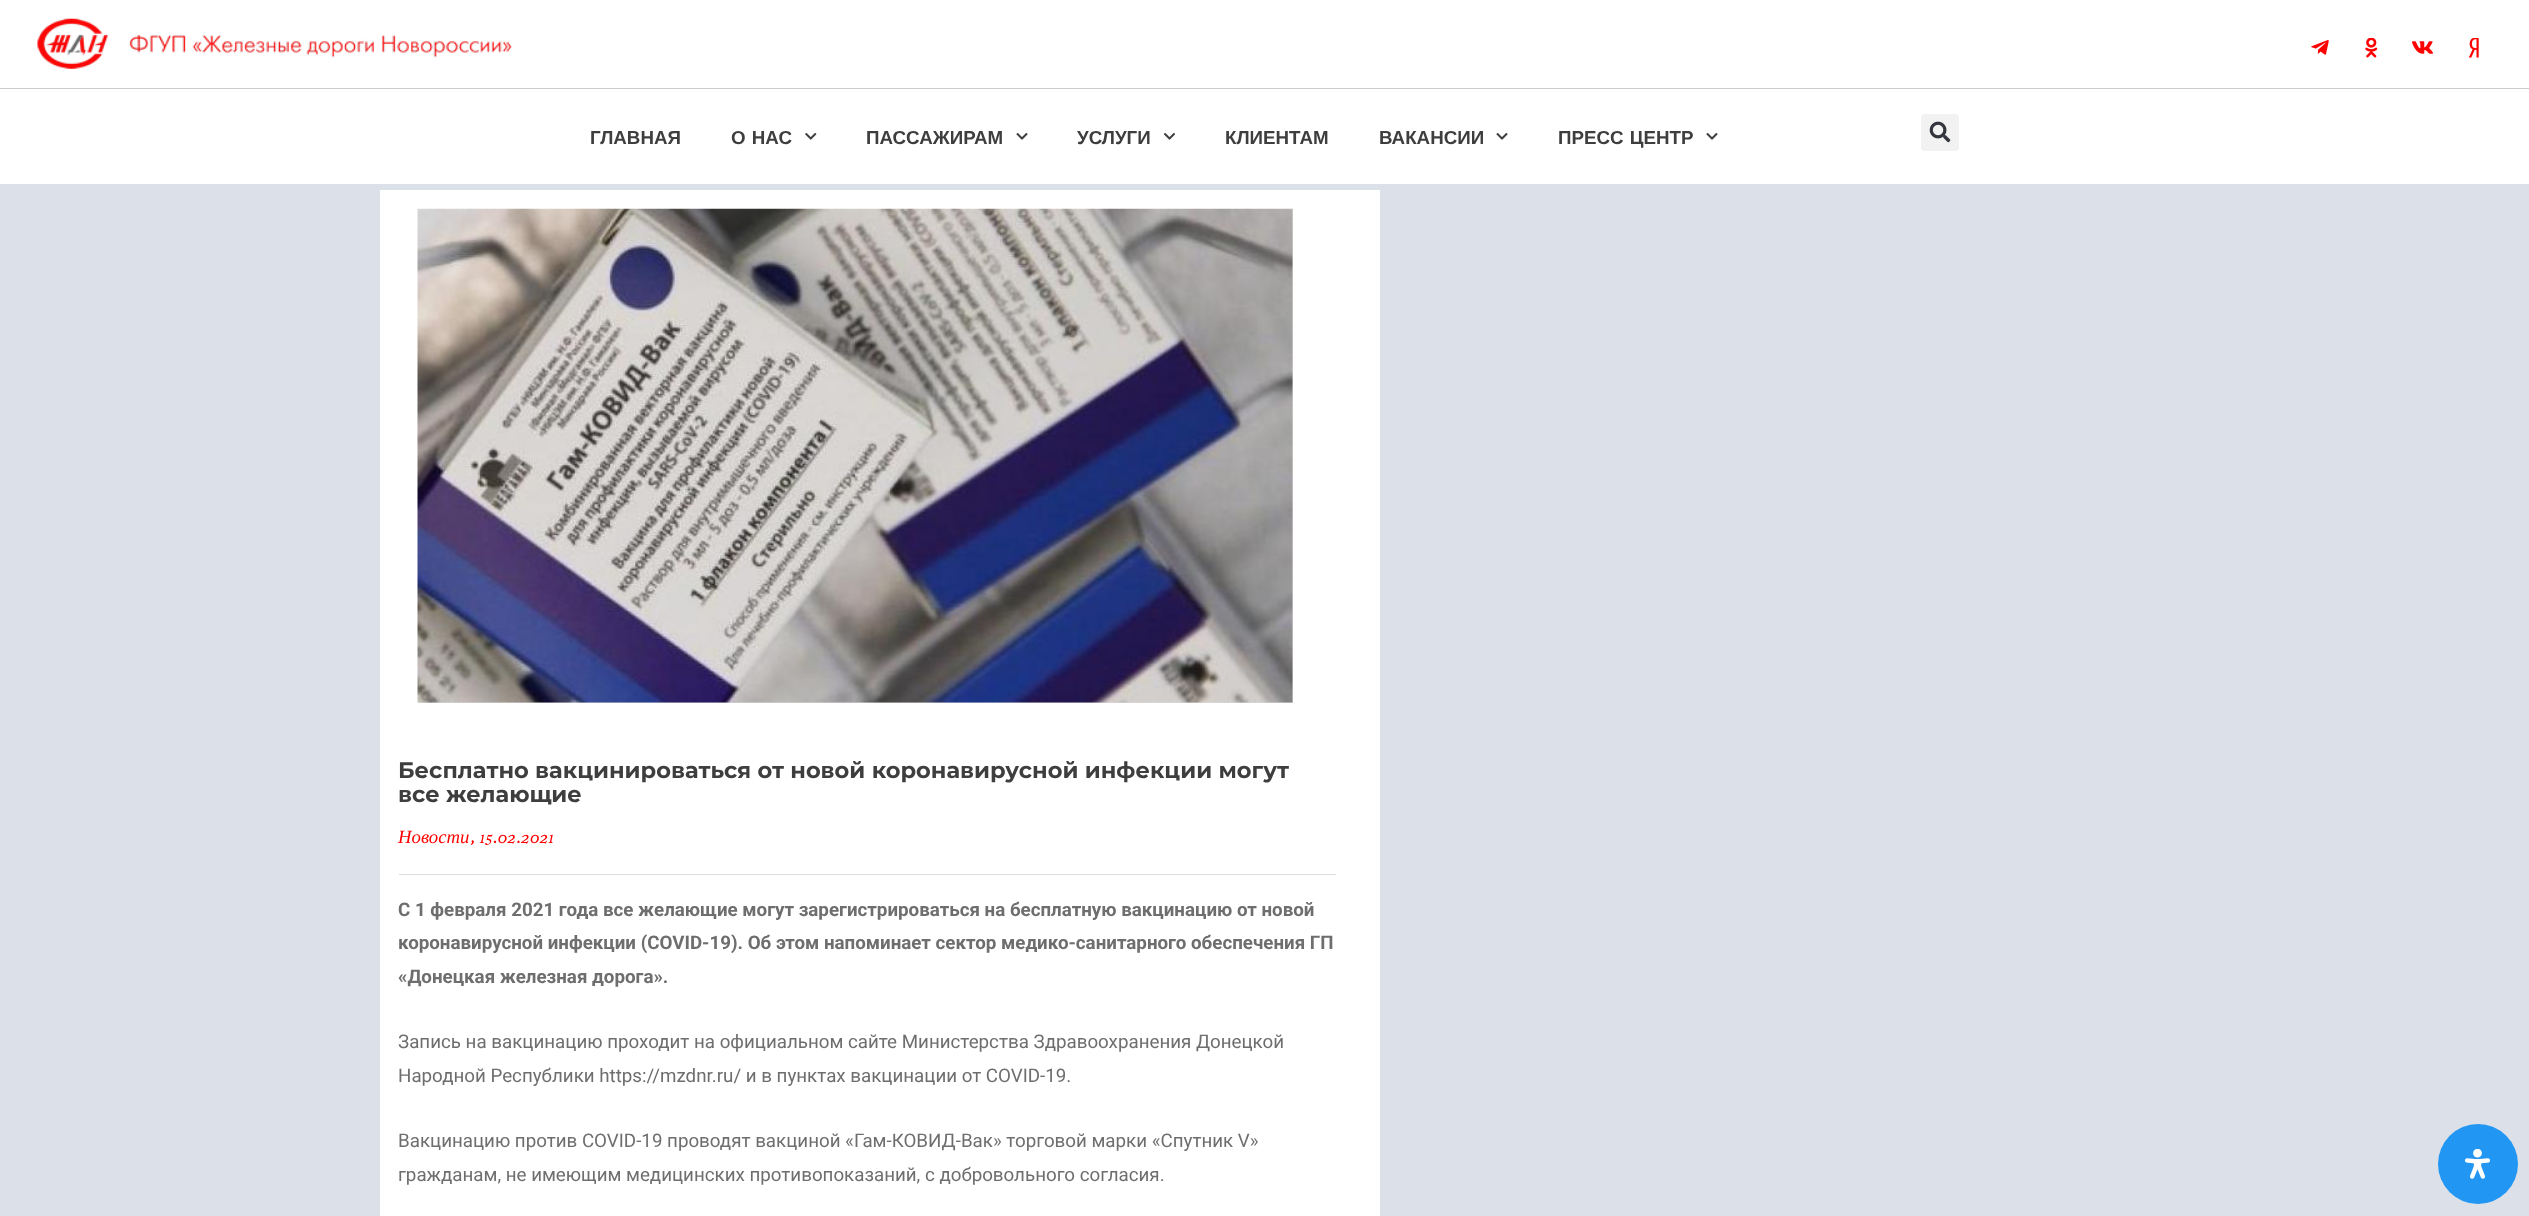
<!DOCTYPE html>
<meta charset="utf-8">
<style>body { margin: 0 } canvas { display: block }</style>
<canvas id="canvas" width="2529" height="1216"></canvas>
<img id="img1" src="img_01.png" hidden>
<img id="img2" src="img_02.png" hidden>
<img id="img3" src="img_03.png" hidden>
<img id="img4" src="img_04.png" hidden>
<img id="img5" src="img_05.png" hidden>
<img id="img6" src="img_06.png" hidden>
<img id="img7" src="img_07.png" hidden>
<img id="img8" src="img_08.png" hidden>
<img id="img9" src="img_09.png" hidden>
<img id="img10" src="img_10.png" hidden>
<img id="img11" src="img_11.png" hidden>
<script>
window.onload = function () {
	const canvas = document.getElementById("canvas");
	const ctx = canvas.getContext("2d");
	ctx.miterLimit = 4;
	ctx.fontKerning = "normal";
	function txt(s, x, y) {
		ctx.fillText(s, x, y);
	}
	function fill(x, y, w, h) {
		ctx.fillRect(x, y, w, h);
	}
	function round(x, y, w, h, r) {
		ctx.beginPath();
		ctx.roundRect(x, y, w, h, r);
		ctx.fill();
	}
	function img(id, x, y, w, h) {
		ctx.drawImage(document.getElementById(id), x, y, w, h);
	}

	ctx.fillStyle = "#DCE0E8";
	fill(0, 0, 2529, 1216);
	ctx.fillStyle = "#FFFFFF";
	fill(0, 0, 2529, 88);
	img("img1", 37, 18, 475, 51);
	img("img2", 2311, 40, 18, 15);
	img("img3", 2365, 38, 13, 20);
	img("img4", 2412, 41, 21, 13);
	img("img5", 2468, 38, 11, 20);
	fill(0, 89, 2529, 95);
	ctx.fillStyle = "#CBCBCB";
	fill(0, 88, 2529, 1);
	img("img6", 805, 133, 12, 7);
	img("img7", 1016, 133, 12, 7);
	img("img8", 1164, 133, 11, 7);
	img("img7", 1496, 133, 12, 7);
	img("img7", 1706, 133, 12, 7);
	ctx.fillStyle = "#F2F2F2";
	round(1921, 114, 38, 37, 4);
	img("img9", 1929, 121, 22, 22);
	ctx.fillStyle = "#FFFFFF";
	fill(380, 190, 1000, 1026);
	ctx.fillStyle = "#DDDDDD";
	fill(418, 209, 875, 494);
	img("img10", 417, 208, 876, 495);
	fill(399, 874, 937, 1);
	ctx.fillStyle = "#2196F3";
	ctx.beginPath();
	ctx.arc(2478, 1164, 40, 0, Math.PI * 2);
	ctx.fill();
	img("img11", 2464, 1149, 27, 30);
	ctx.font = "bold 18.75px Liberation Sans";
	ctx.fillStyle = "#3E3E3E";
	txt("ГЛАВНАЯ", 590, 144);
	ctx.wordSpacing = "1px";
	txt("О НАС", 731, 144);
	ctx.wordSpacing = "0px";
	txt("ПАССАЖИРАМ", 866, 144);
	txt("УСЛУГИ", 1077, 144);
	txt("КЛИЕНТАМ", 1225, 144);
	txt("ВАКАНСИИ", 1379, 144);
	ctx.wordSpacing = "1px";
	txt("ПРЕСС ЦЕНТР", 1558, 144);
	ctx.wordSpacing = "0px";
	ctx.font = "100 22.5px Montserrat";
	txt("Бесплатно вакцинироваться от новой коронавирусной инфекции могут", 398, 778);
	txt("все желающие", 398, 802);
	ctx.font = "italic 18.75px Liberation Serif";
	ctx.fillStyle = "#FF0000";
	txt("Новости", 398, 843);
	ctx.font = "italic 18.75px Radley";
	txt(", 15.02.2021", 470, 843);
	ctx.font = "bold 18.75px Roboto";
	ctx.fillStyle = "#6E6E6E";
	txt("С 1 февраля 2021 года все желающие могут зарегистрироваться на бесплатную вакцинацию от новой", 398, 916);
	txt("коронавирусной инфекции (COVID-19). Об этом напоминает сектор медико-санитарного обеспечения ГП", 398, 949);
	txt("«Донецкая железная дорога».", 398, 983);
	ctx.font = "18.75px Roboto";
	txt("Запись на вакцинацию проходит на официальном сайте Министерства Здравоохранения Донецкой", 398, 1048);
	txt("Народной Республики https://mzdnr.ru/ и в пунктах вакцинации от СOVID-19.", 398, 1082);
	txt("Вакцинацию против COVID-19 проводят вакциной «Гам-КОВИД-Вак» торговой марки «Спутник V»", 398, 1147);
	txt("гражданам, не имеющим медицинских противопоказаний, с добровольного согласия.", 398, 1181);
};
</script>
